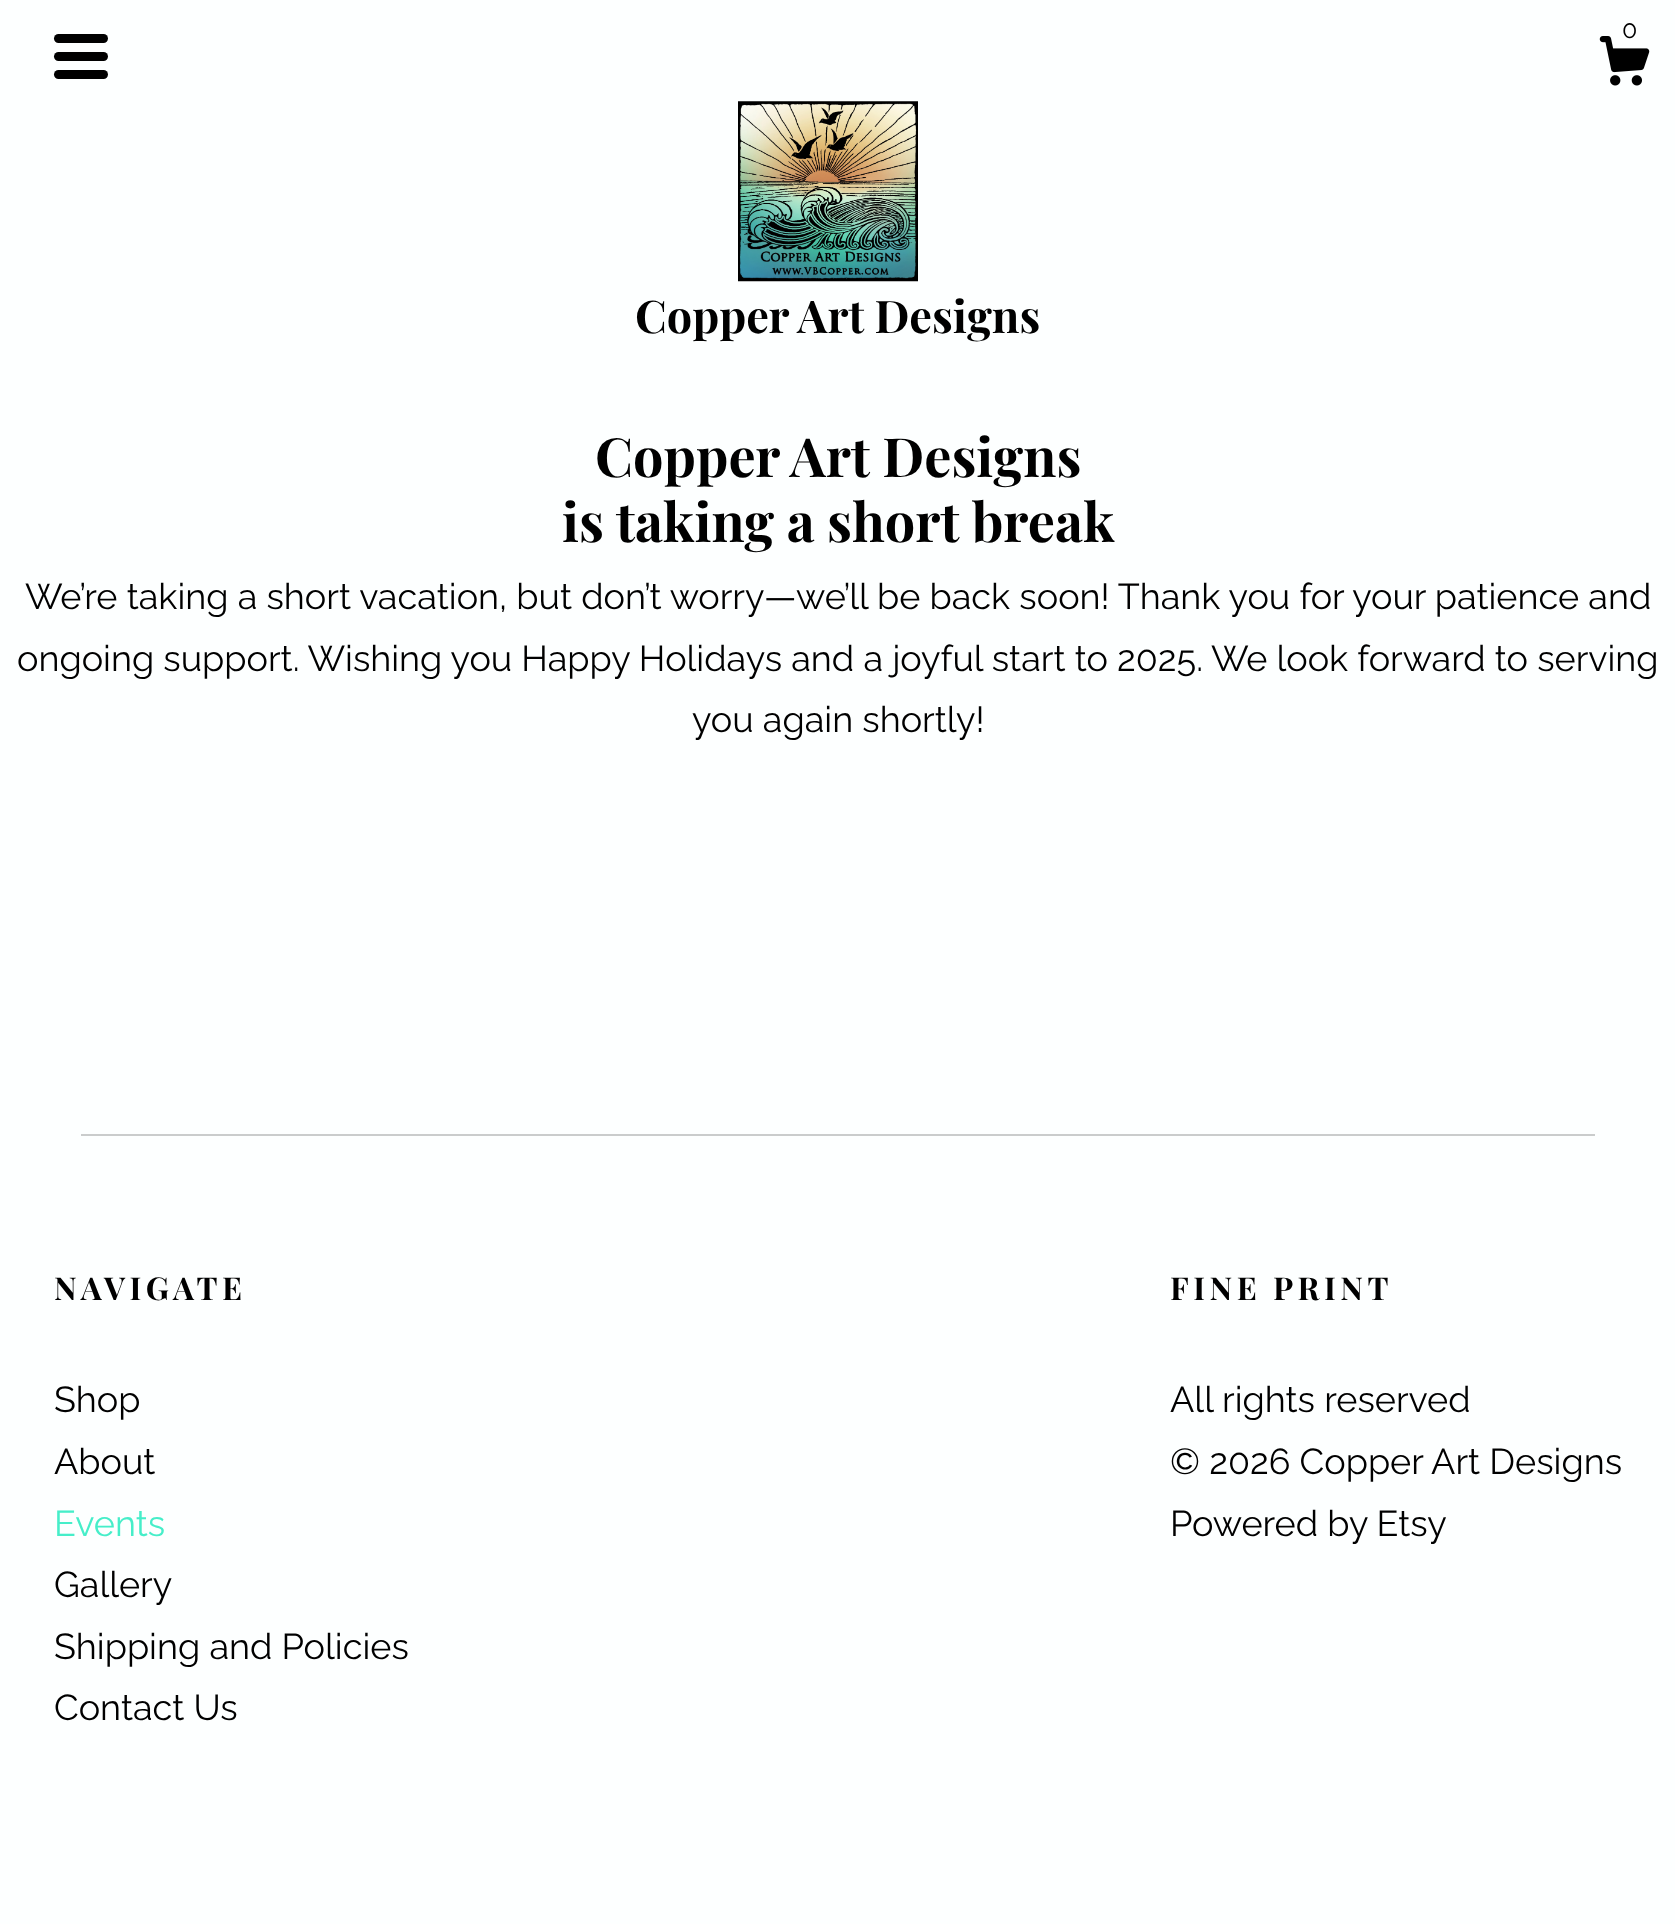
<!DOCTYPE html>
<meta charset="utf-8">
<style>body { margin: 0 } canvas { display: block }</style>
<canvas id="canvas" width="1675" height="1924"></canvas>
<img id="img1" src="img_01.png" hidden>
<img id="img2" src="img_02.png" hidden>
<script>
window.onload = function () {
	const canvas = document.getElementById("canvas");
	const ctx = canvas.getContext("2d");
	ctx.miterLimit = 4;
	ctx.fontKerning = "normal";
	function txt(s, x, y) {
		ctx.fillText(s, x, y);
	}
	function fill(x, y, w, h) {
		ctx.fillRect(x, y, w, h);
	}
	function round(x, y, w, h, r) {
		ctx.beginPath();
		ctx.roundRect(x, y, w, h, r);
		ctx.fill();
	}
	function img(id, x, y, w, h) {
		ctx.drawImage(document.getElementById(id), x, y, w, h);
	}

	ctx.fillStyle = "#FDFFFF";
	fill(0, 0, 1675, 1924);
	img("img1", 1599, 36, 51, 50);
	ctx.fillStyle = "#000000";
	round(54, 34, 54, 9, 4.5);
	round(54, 52, 54, 9, 4.5);
	round(54, 70, 54, 9, 4.5);
	img("img2", 738, 101, 180, 181);
	ctx.fillStyle = "#CACCCC";
	fill(81, 1134, 1514, 2);
	ctx.font = "25px Raleway";
	ctx.fillStyle = "#000000";
	txt("0", 1622, 38);
	ctx.font = "bold 45px Playfair Display";
	txt("Copper Art Designs", 635, 333);
	ctx.font = "bold 54px Playfair Display";
	txt("Copper Art Designs", 595, 477);
	txt("is taking a short break", 562, 542);
	ctx.font = "36px Raleway";
	txt("We’re taking a short vacation, but don’t worry—we’ll be back soon! Thank you for your patience and", 25, 609);
	txt("ongoing support. Wishing you Happy Holidays and a joyful start to 2025. We look forward to serving", 17, 671);
	txt("you again shortly!", 692, 732);
	ctx.letterSpacing = "4.5px";
	ctx.font = "bold 31.5px Playfair Display";
	txt("NAVIGATE", 54, 1300);
	ctx.letterSpacing = "0px";
	ctx.font = "36px Raleway";
	txt("Shop", 54, 1412);
	txt("About", 54, 1474);
	ctx.fillStyle = "#46EEC9";
	txt("Events", 54, 1536);
	ctx.fillStyle = "#000000";
	txt("Gallery", 54, 1597);
	txt("Shipping and Policies", 54, 1659);
	txt("Contact Us", 54, 1720);
	ctx.letterSpacing = "4.5px";
	ctx.font = "bold 31.5px Playfair Display";
	txt("FINE PRINT", 1170, 1300);
	ctx.letterSpacing = "0px";
	ctx.font = "36px Raleway";
	txt("All rights reserved", 1170, 1412);
	txt("© 2026 Copper Art Designs", 1170, 1474);
	txt("Powered by Etsy", 1170, 1536);
};
</script>
